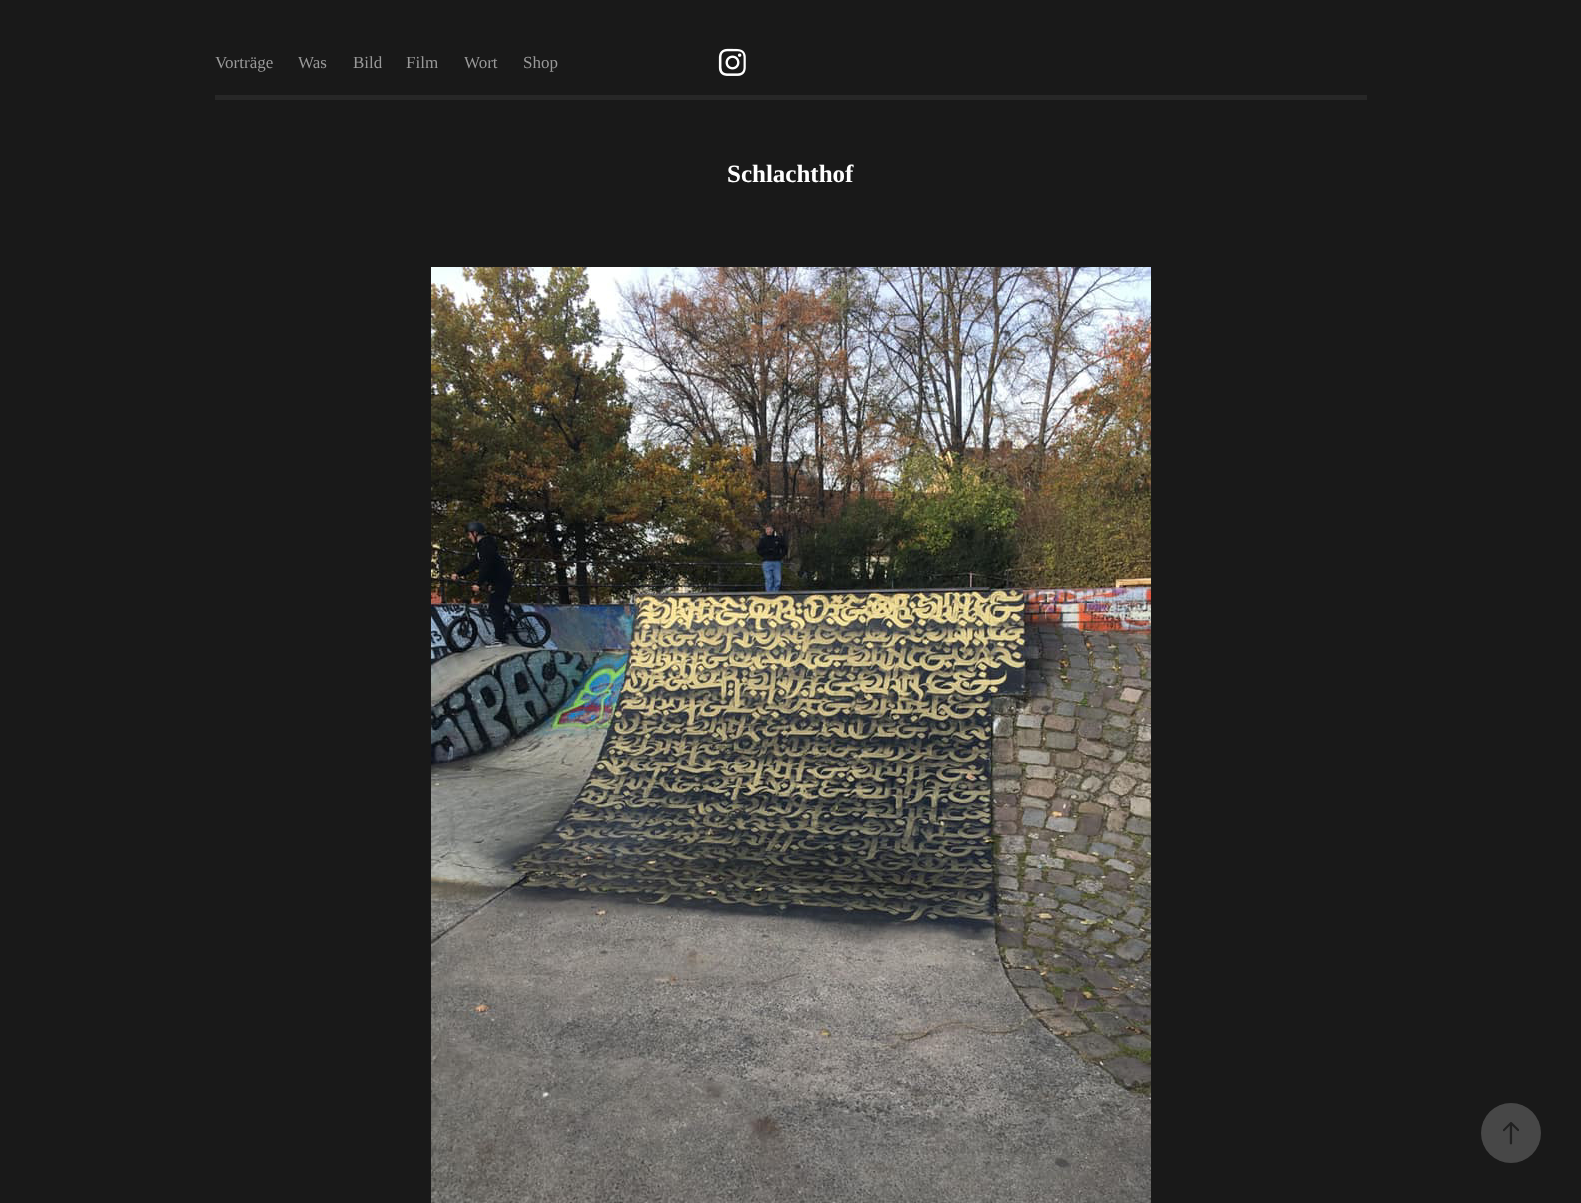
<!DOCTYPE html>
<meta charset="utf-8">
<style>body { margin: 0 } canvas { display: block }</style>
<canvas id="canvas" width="1581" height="1203"></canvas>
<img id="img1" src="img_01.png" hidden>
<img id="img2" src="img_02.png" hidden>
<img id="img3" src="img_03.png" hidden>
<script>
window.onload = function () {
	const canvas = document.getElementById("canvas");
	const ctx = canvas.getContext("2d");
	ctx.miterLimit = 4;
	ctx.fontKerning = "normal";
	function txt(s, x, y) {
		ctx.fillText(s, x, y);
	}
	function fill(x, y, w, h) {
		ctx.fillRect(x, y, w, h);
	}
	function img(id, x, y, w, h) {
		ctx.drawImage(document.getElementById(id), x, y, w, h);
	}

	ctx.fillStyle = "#191919";
	fill(0, 0, 1581, 1203);
	ctx.fillStyle = "#272727";
	fill(215, 95, 1152, 5);
	img("img1", 718, 48, 28, 28);
	img("img2", 431, 267, 720, 936);
	ctx.fillStyle = "#474747";
	ctx.beginPath();
	ctx.arc(1511, 1133, 30, 0, Math.PI * 2);
	ctx.fill();
	img("img3", 1503, 1122, 16, 23);
	ctx.font = "17px Liberation Serif";
	ctx.fillStyle = "#999999";
	txt("Vorträge", 215, 68);
	txt("Was", 298, 68);
	txt("Bild", 353, 68);
	txt("Film", 406, 68);
	txt("Wort", 464, 68);
	txt("Shop", 523, 68);
	ctx.font = "bold 25px Liberation Serif";
	ctx.fillStyle = "#FFFFFF";
	txt("Schlachthof", 727, 182);
};
</script>
